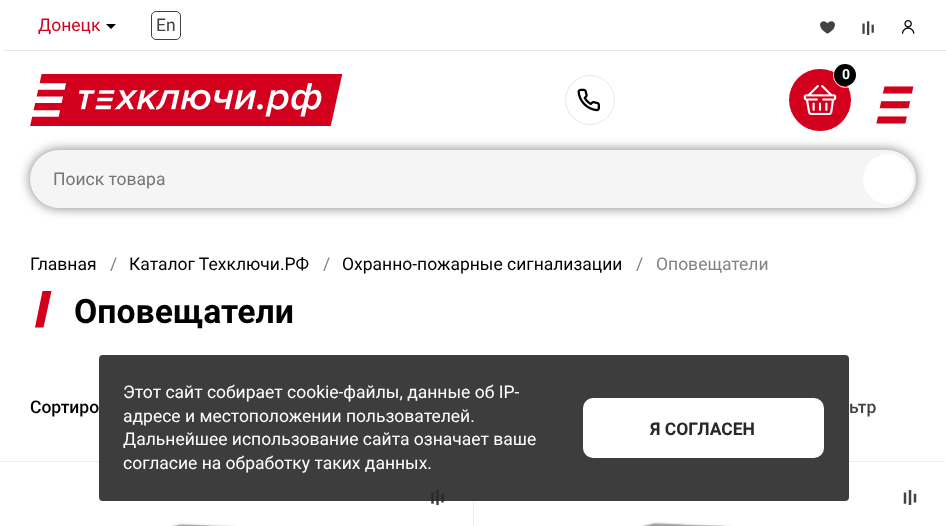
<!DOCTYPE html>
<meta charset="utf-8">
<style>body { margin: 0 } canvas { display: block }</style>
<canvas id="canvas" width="946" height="526"></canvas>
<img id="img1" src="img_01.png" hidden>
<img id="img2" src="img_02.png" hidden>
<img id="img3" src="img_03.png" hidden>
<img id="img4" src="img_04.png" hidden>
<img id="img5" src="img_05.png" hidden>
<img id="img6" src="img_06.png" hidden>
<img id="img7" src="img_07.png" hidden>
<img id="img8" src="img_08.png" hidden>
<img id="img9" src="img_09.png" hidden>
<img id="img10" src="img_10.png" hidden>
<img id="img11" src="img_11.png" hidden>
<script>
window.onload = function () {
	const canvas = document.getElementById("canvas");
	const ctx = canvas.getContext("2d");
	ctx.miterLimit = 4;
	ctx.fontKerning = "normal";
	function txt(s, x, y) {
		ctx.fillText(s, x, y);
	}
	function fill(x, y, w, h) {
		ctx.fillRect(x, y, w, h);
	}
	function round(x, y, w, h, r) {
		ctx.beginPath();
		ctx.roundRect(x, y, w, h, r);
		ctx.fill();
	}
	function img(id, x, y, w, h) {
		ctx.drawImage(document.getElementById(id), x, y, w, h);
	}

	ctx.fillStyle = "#FFFFFF";
	fill(0, 0, 946, 526);
	ctx.fillStyle = "#E7E7E7";
	fill(4, 50, 942, 1);
	ctx.fillStyle = "#000000";
	ctx.beginPath();
	ctx.moveTo(106, 24);
	ctx.lineTo(116, 24);
	ctx.lineTo(111, 29);
	ctx.closePath();
	ctx.fill();
	ctx.beginPath();
	ctx.roundRect(151.5, 11.5, 29, 28, 4.5);
	ctx.strokeStyle = "#424242";
	ctx.stroke();
	img("img1", 820, 21, 15, 13);
	img("img2", 862, 21, 12, 14);
	img("img3", 901, 20, 14, 14);
	img("img4", 30, 74, 313, 52);
	ctx.beginPath();
	ctx.arc(590, 100, 24.5, 0, Math.PI * 2);
	ctx.strokeStyle = "#E7E7E7";
	ctx.stroke();
	img("img5", 577, 88, 23, 24);
	ctx.fillStyle = "#D2001D";
	ctx.beginPath();
	ctx.arc(820, 100, 31, 0, Math.PI * 2);
	ctx.fill();
	img("img6", 803, 85, 34, 30);
	ctx.beginPath();
	ctx.arc(845.5, 75.5, 12, 0, Math.PI * 2);
	ctx.strokeStyle = "#FFFFFF";
	ctx.stroke();
	ctx.fillStyle = "#000000";
	ctx.beginPath();
	ctx.arc(845, 75, 11, 0, Math.PI * 2);
	ctx.fill();
	img("img7", 876, 86, 38, 38);
	ctx.fillStyle = "rgba(0, 0, 0, 0.5)";
	ctx.filter = "blur(6px)";
	ctx.beginPath();
	ctx.roundRect(30, 150, 886, 58, 29);
	ctx.fill();
	ctx.filter = "none";
	ctx.fillStyle = "#F5F5F5";
	round(30, 150, 886, 58, 29);
	ctx.fillStyle = "#FFFFFF";
	ctx.beginPath();
	ctx.arc(888, 179, 25, 0, Math.PI * 2);
	ctx.fill();
	ctx.fillStyle = "#D2001D";
	ctx.beginPath();
	ctx.moveTo(42.5, 291);
	ctx.lineTo(51.5, 291);
	ctx.lineTo(43.5, 327.5);
	ctx.lineTo(35, 327.5);
	ctx.closePath();
	ctx.fill();
	ctx.fillStyle = "#EEEEEE";
	fill(0, 461, 945, 1);
	fill(473, 461, 1, 65);
	img("img8", 431, 490, 13, 15);
	img("img9", 171, 523, 65, 3);
	img("img10", 903, 490, 14, 15);
	img("img11", 642, 522, 90, 4);
	ctx.fillStyle = "rgba(40, 40, 40, 0.9)";
	round(99, 355, 750, 146, 4);
	ctx.fillStyle = "#FFFFFF";
	round(583, 398, 241, 60, 10);
	ctx.font = "17.5px Roboto";
	ctx.fillStyle = "#D2001D";
	txt("Донецк", 38, 31);
	ctx.fillStyle = "#424242";
	txt("En", 156, 31);
	ctx.font = "bold 14px Roboto";
	ctx.fillStyle = "#FFFFFF";
	txt("0", 842, 79);
	ctx.font = "17.5px Roboto";
	ctx.fillStyle = "#757575";
	txt("Поиск товара", 53, 185);
	ctx.fillStyle = "#000000";
	txt("Главная", 30, 270);
	ctx.fillStyle = "#828282";
	txt("/", 110, 270);
	ctx.fillStyle = "#000000";
	txt("Каталог Техключи.РФ", 129, 270);
	ctx.fillStyle = "#828282";
	txt("/", 323, 270);
	ctx.fillStyle = "#000000";
	txt("Охранно-пожарные сигнализации", 342, 270);
	ctx.fillStyle = "#828282";
	txt("/", 636, 270);
	txt("Оповещатели", 656, 270);
	ctx.font = "bold 33.75px Roboto";
	ctx.fillStyle = "#000000";
	txt("Оповещатели", 74, 323);
	ctx.font = "500 17.5px Roboto";
	txt("Сортиро", 30, 413);
	ctx.fillStyle = "#424242";
	txt("ьтр", 849, 413);
	ctx.font = "17.5px Roboto";
	ctx.fillStyle = "#FFFFFF";
	txt("Этот сайт собирает cookie-файлы, данные об IP-", 123, 398);
	txt("адресе и местоположении пользователей.", 123, 422);
	txt("Дальнейшее использование сайта означает ваше", 123, 445);
	txt("согласие на обработку таких данных.", 123, 469);
	ctx.font = "bold 17.5px Roboto";
	ctx.fillStyle = "#282828";
	txt("Я СОГЛАСЕН", 650, 435);
};
</script>
